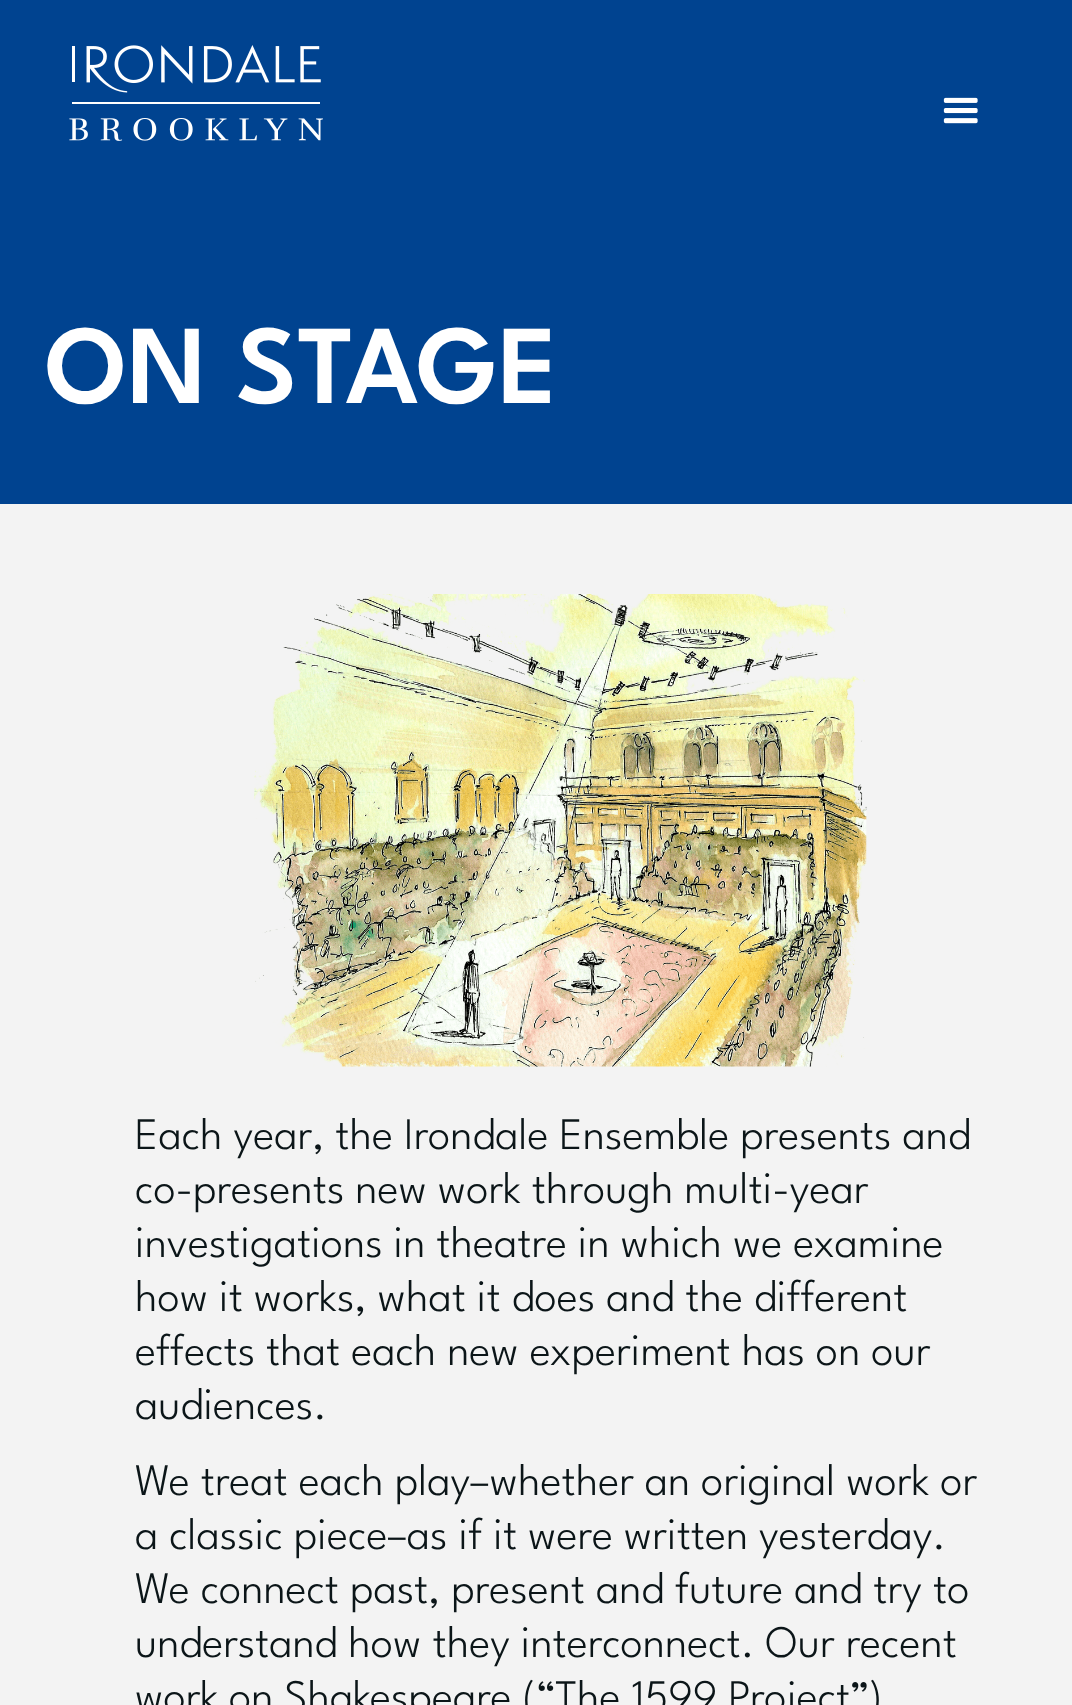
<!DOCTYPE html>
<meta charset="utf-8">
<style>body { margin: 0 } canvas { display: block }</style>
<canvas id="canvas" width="1072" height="1705"></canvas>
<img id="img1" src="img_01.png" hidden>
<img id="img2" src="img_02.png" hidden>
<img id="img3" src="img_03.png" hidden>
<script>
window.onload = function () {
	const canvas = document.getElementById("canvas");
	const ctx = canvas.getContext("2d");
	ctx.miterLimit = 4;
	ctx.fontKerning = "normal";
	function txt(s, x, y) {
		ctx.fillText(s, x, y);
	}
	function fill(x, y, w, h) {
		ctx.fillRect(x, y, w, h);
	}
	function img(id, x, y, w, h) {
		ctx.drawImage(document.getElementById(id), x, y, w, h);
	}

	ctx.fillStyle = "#F3F3F3";
	fill(0, 0, 1072, 1705);
	ctx.fillStyle = "#004390";
	fill(0, 0, 1072, 504);
	img("img1", 69, 45, 254, 96);
	img("img2", 943, 97, 35, 27);
	img("img3", 254, 594, 613, 473);
	ctx.font = "600 112.5px League Spartan";
	ctx.fillStyle = "#FFFFFF";
	txt("ON STAGE", 45, 403);
	ctx.font = "300 45px League Spartan";
	ctx.fillStyle = "#0B1518";
	txt("Each year, the Irondale Ensemble presents and", 135, 1149);
	txt("co-presents new work through multi-year", 135, 1203);
	txt("investigations in theatre in which we examine", 135, 1257);
	txt("how it works, what it does and the different", 135, 1311);
	txt("effects that each new experiment has on our", 135, 1365);
	txt("audiences.", 135, 1419);
	txt("We treat each play–whether an original work or", 135, 1495);
	txt("a classic piece–as if it were written yesterday.", 135, 1549);
	txt("We connect past, present and future and try to", 135, 1603);
	txt("understand how they interconnect. Our recent", 135, 1657);
	txt("work on Shakespeare (“The 1599 Project”)", 135, 1711);
};
</script>
